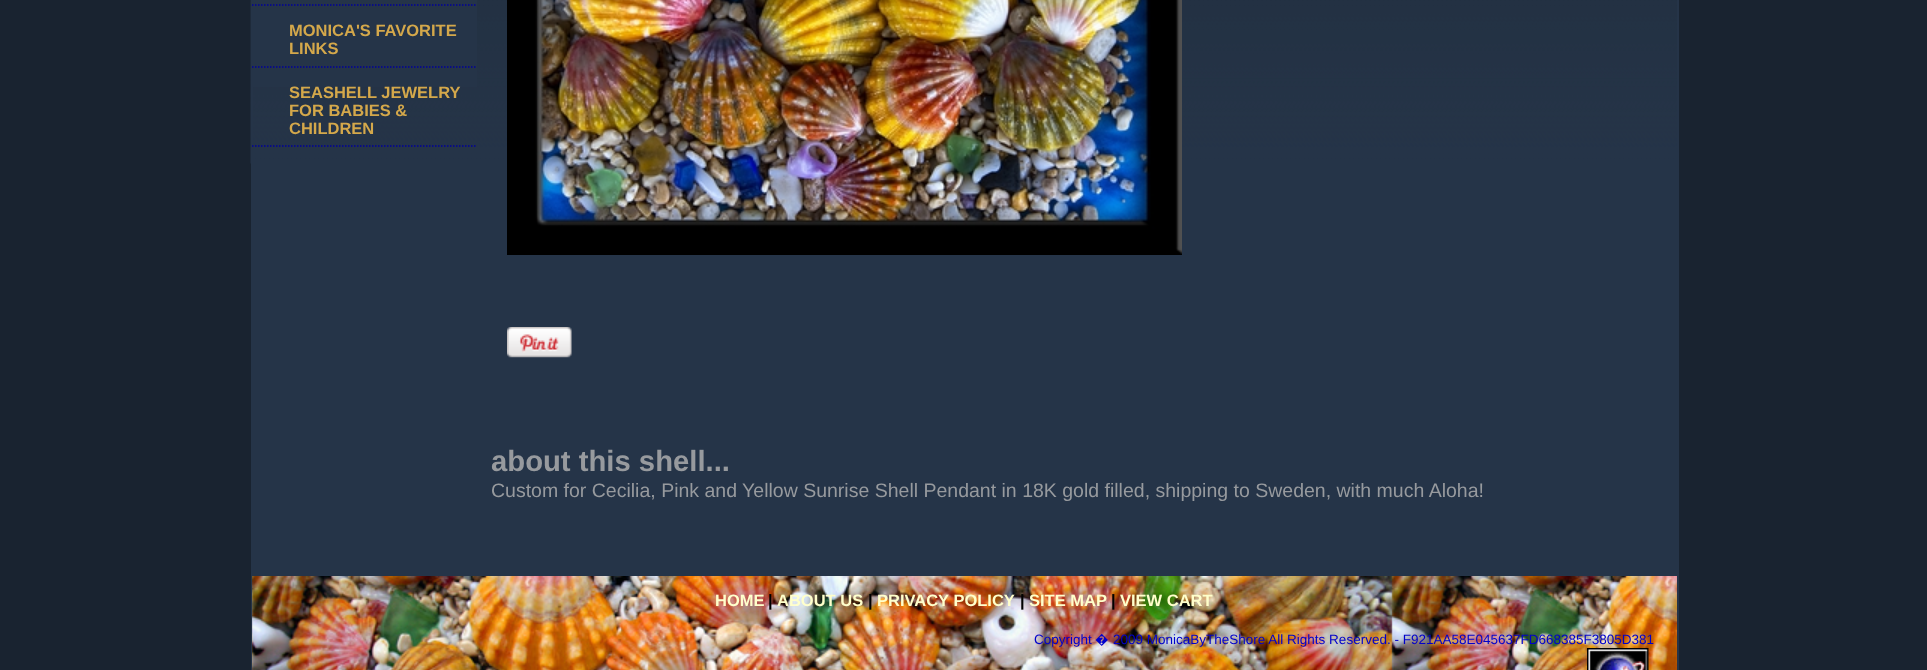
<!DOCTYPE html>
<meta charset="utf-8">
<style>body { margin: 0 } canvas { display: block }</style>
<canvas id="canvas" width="1927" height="670"></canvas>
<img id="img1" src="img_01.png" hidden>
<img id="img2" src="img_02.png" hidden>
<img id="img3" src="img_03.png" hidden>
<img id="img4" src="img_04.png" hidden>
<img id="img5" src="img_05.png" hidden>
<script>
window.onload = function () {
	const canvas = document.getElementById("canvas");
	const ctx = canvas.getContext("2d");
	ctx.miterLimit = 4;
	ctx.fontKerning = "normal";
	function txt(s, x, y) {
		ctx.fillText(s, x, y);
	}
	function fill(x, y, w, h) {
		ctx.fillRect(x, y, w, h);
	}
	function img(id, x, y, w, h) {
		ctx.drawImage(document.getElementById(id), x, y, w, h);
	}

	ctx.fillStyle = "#192330";
	fill(0, 0, 1927, 670);
	ctx.fillStyle = "#253448";
	fill(253, 163, 1424, 413);
	img("img1", 250, 0, 1427, 164);
	ctx.strokeStyle = "#253448";
	ctx.lineWidth = 2;
	ctx.strokeRect(252, -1, 1426, 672);
	fill(253, 0, 224, 87);
	ctx.beginPath();
	ctx.moveTo(252, 5);
	ctx.lineTo(477, 5);
	ctx.strokeStyle = "#000099";
	ctx.lineWidth = 1.5;
	ctx.setLineDash([1.5, 1.5]);
	ctx.stroke();
	ctx.beginPath();
	ctx.moveTo(252, 67);
	ctx.lineTo(477, 67);
	ctx.stroke();
	ctx.beginPath();
	ctx.moveTo(252, 146);
	ctx.lineTo(477, 146);
	ctx.stroke();
	img("img2", 507, 0, 675, 255);
	img("img3", 507, 327, 65, 31);
	img("img4", 252, 576, 1425, 94);
	img("img5", 1587, 648, 62, 22);
	ctx.font = "bold 16.5px Liberation Sans";
	ctx.fillStyle = "#D4A84B";
	txt("MONICA'S FAVORITE", 289, 36);
	txt("LINKS", 289, 54);
	txt("SEASHELL JEWELRY", 289, 98);
	txt("FOR BABIES &", 289, 116);
	txt("CHILDREN", 289, 134);
	ctx.font = "bold 29.25px Liberation Sans";
	ctx.fillStyle = "#979A9E";
	txt("about this shell...", 491, 471);
	ctx.font = "19.5px Liberation Sans";
	txt("Custom for Cecilia, Pink and Yellow Sunrise Shell Pendant in 18K gold filled, shipping to Sweden, with much Aloha!", 491, 497);
	ctx.font = "bold 16.5px Liberation Sans";
	ctx.fillStyle = "#FFFFCC";
	txt("HOME", 715, 606);
	ctx.fillStyle = "#000000";
	txt("|", 768, 606);
	ctx.fillStyle = "#FFFFCC";
	txt("ABOUT US", 777, 606);
	ctx.fillStyle = "#000000";
	txt("|", 868, 606);
	ctx.fillStyle = "#FFFFCC";
	txt("PRIVACY POLICY", 877, 606);
	ctx.fillStyle = "#000000";
	txt("|", 1020, 606);
	ctx.fillStyle = "#FFFFCC";
	txt("SITE MAP", 1029, 606);
	ctx.fillStyle = "#000000";
	txt("|", 1111, 606);
	ctx.fillStyle = "#FFFFCC";
	txt("VIEW CART", 1120, 606);
	ctx.font = "13.5px Liberation Sans";
	ctx.fillStyle = "#0000CC";
	txt("Copyright", 1034, 644);
	ctx.font = "13.5px Noto Sans";
	txt("�", 1095, 644);
	ctx.font = "13.5px Liberation Sans";
	txt("2009 MonicaByTheShore All Rights Reserved. - F921AA58E045637FD668385F3805D381", 1113, 644);
};
</script>
